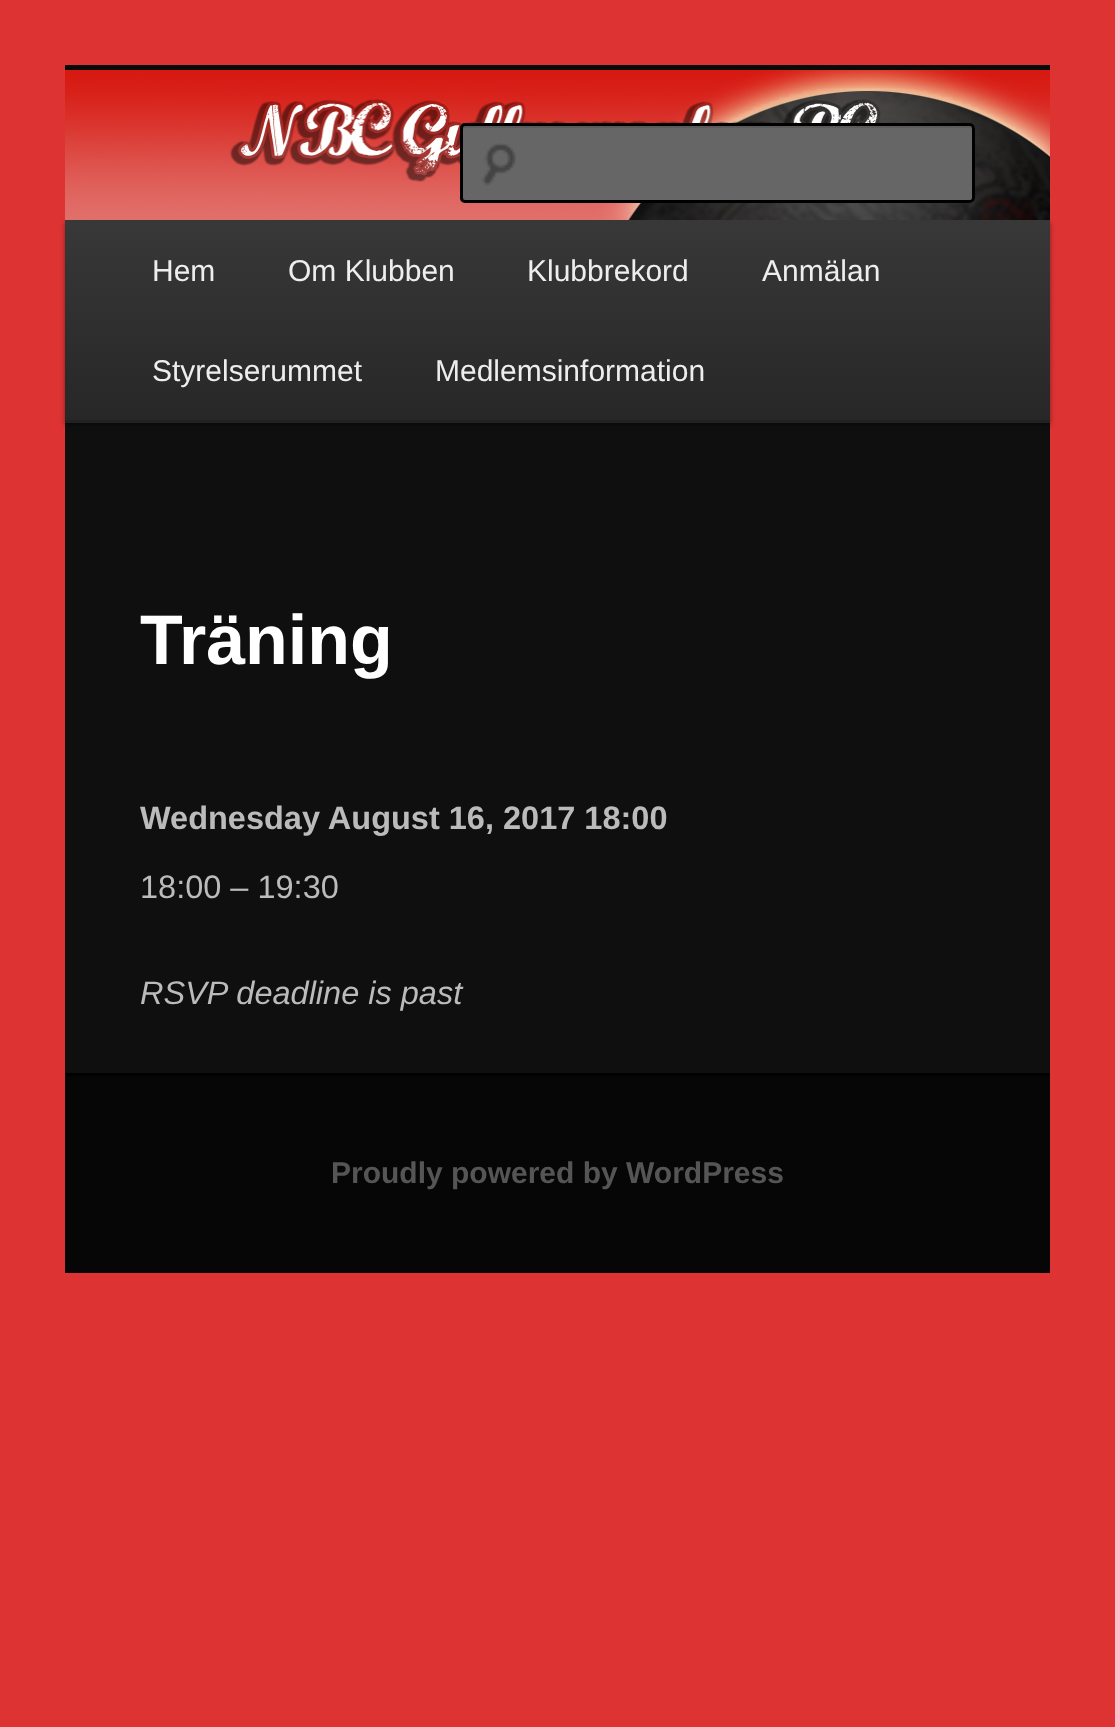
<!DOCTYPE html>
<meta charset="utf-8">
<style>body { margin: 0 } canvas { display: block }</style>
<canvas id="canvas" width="1115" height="1727"></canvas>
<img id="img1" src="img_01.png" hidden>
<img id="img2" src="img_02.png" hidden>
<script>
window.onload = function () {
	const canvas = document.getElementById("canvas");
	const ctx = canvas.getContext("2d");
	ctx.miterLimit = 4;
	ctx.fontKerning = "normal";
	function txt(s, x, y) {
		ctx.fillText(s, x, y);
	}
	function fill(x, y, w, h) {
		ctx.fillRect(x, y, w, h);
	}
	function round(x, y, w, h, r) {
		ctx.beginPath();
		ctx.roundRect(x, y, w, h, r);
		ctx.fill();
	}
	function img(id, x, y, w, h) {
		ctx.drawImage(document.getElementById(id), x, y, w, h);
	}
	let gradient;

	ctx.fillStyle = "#DD3333";
	fill(0, 0, 1115, 1727);
	ctx.fillStyle = "#0F0F0F";
	fill(65, 423, 985, 650);
	ctx.fillStyle = "#0A0A0A";
	fill(65, 65, 985, 5);
	ctx.fillStyle = "rgba(0, 0, 0, 0.4)";
	ctx.filter = "blur(2.5px)";
	ctx.beginPath();
	ctx.rect(65, 223, 985, 202);
	ctx.fill();
	ctx.filter = "none";
	img("img1", 65, 70, 985, 150);
	ctx.fillStyle = "#666666";
	round(460, 123, 515, 80, 5);
	img("img2", 482, 143, 34, 43);
	ctx.fillStyle = "#5C5C5C";
	ctx.beginPath();
	ctx.moveTo(465, 128);
	ctx.lineTo(970, 128);
	ctx.bezierCurveTo(971, 128, 972, 129, 972, 130);
	ctx.lineTo(972, 200);
	ctx.bezierCurveTo(973, 199, 973, 198, 973, 198);
	ctx.lineTo(973, 128);
	ctx.bezierCurveTo(973, 126, 972, 125, 970, 125);
	ctx.lineTo(466, 125);
	ctx.bezierCurveTo(464, 125, 463, 126, 463, 128);
	ctx.lineTo(463, 129);
	ctx.closePath();
	ctx.fill();
	ctx.beginPath();
	ctx.roundRect(461.5, 124.5, 512, 77, 3.5);
	ctx.strokeStyle = "#000000";
	ctx.lineWidth = 3;
	ctx.stroke();
	gradient = ctx.createLinearGradient(558, 220, 558, 420);
	gradient.addColorStop(0, "#383838");
	gradient.addColorStop(1, "#272727");
	ctx.fillStyle = gradient;
	fill(65, 220, 985, 200);
	ctx.fillStyle = "#222222";
	fill(65, 420, 985, 3);
	ctx.fillStyle = "#060606";
	fill(65, 1076, 985, 197);
	ctx.fillStyle = "#000000";
	fill(65, 1073, 985, 3);
	ctx.font = "30px Liberation Sans";
	ctx.fillStyle = "#EEEEEE";
	txt("Hem", 152, 281);
	txt("Om Klubben", 288, 281);
	txt("Klubbrekord", 527, 281);
	txt("Anmälan", 762, 281);
	txt("Styrelserummet", 152, 381);
	txt("Medlemsinformation", 435, 381);
	ctx.font = "bold 70px Liberation Sans";
	ctx.fillStyle = "#FFFFFF";
	txt("Träning", 140, 664);
	ctx.font = "bold 32.5px Liberation Sans";
	ctx.fillStyle = "#BBBBBB";
	txt("Wednesday August 16, 2017 18:00", 140, 829);
	ctx.font = "32.5px Liberation Sans";
	txt("18:00 – 19:30", 140, 898);
	ctx.font = "italic 32.5px Liberation Sans";
	txt("RSVP deadline is past", 140, 1004);
	ctx.font = "bold 30px Liberation Sans";
	ctx.fillStyle = "#555555";
	txt("Proudly powered by WordPress", 331, 1183);
};
</script>
